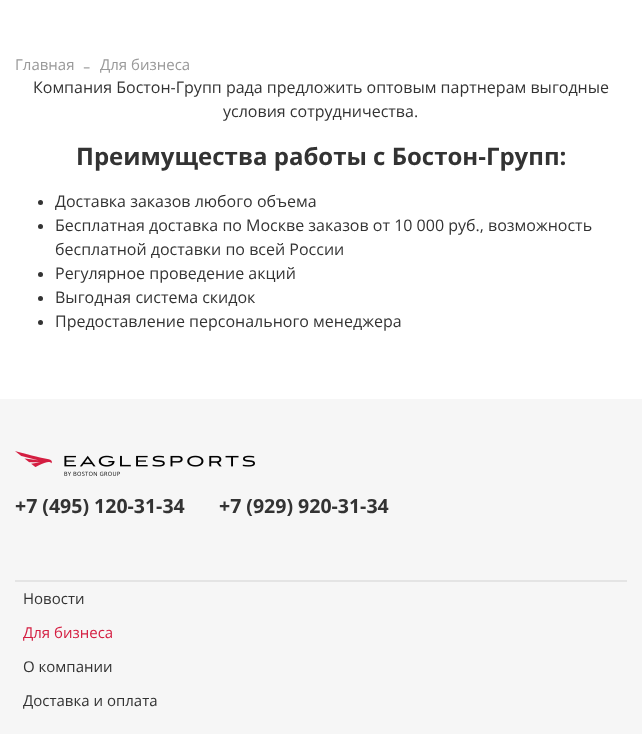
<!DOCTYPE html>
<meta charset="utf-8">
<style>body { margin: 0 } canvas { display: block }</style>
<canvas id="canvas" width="642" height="734"></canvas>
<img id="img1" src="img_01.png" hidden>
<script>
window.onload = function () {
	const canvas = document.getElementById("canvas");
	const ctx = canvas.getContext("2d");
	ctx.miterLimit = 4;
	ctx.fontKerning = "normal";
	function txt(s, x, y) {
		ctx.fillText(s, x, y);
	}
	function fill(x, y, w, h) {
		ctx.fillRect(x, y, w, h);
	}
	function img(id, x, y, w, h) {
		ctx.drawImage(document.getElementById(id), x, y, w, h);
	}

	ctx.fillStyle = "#FFFFFF";
	fill(0, 0, 642, 734);
	ctx.fillStyle = "#333333";
	ctx.beginPath();
	ctx.arc(40.5, 202.5, 2.5, 0, Math.PI * 2);
	ctx.fill();
	ctx.beginPath();
	ctx.arc(40.5, 226.5, 2.5, 0, Math.PI * 2);
	ctx.fill();
	ctx.beginPath();
	ctx.arc(40.5, 274.5, 2.5, 0, Math.PI * 2);
	ctx.fill();
	ctx.beginPath();
	ctx.arc(40.5, 298.5, 2.5, 0, Math.PI * 2);
	ctx.fill();
	ctx.beginPath();
	ctx.arc(40.5, 322.5, 2.5, 0, Math.PI * 2);
	ctx.fill();
	ctx.fillStyle = "#F6F6F6";
	fill(0, 399, 642, 335);
	img("img1", 15, 451, 240, 25);
	ctx.fillStyle = "#E4E4E4";
	fill(15, 580, 612, 2);
	ctx.font = "15px Open Sans";
	ctx.fillStyle = "#999999";
	txt("Главная", 15, 70);
	ctx.font = "22px Liberation Serif";
	ctx.fillStyle = "#B8B8B8";
	txt("-", 83, 73);
	ctx.font = "15px Open Sans";
	ctx.fillStyle = "#999999";
	txt("Для бизнеса", 100, 70);
	ctx.font = "16px Open Sans";
	ctx.fillStyle = "#333333";
	txt("Компания Бостон-Групп рада предложить оптовым партнерам выгодные", 33, 93);
	txt("условия сотрудничества.", 223, 117);
	ctx.font = "bold 24px Open Sans";
	txt("Преимущества работы с Бостон-Групп:", 76, 165);
	ctx.font = "16px Open Sans";
	txt("Доставка заказов любого объема", 55, 207);
	txt("Бесплатная доставка по Москве заказов от 10 000 руб., возможность", 55, 231);
	txt("бесплатной доставки по всей России", 55, 255);
	txt("Регулярное проведение акций", 55, 279);
	txt("Выгодная система скидок", 55, 303);
	txt("Предоставление персонального менеджера", 55, 327);
	ctx.font = "bold 19.5px Open Sans";
	txt("+7 (495) 120-31-34", 15, 513);
	txt("+7 (929) 920-31-34", 219, 513);
	ctx.font = "15px Open Sans";
	txt("Новости", 23, 604);
	ctx.fillStyle = "#D41E41";
	txt("Для бизнеса", 23, 638);
	ctx.fillStyle = "#333333";
	txt("О компании", 23, 672);
	txt("Доставка и оплата", 23, 706);
};
</script>
